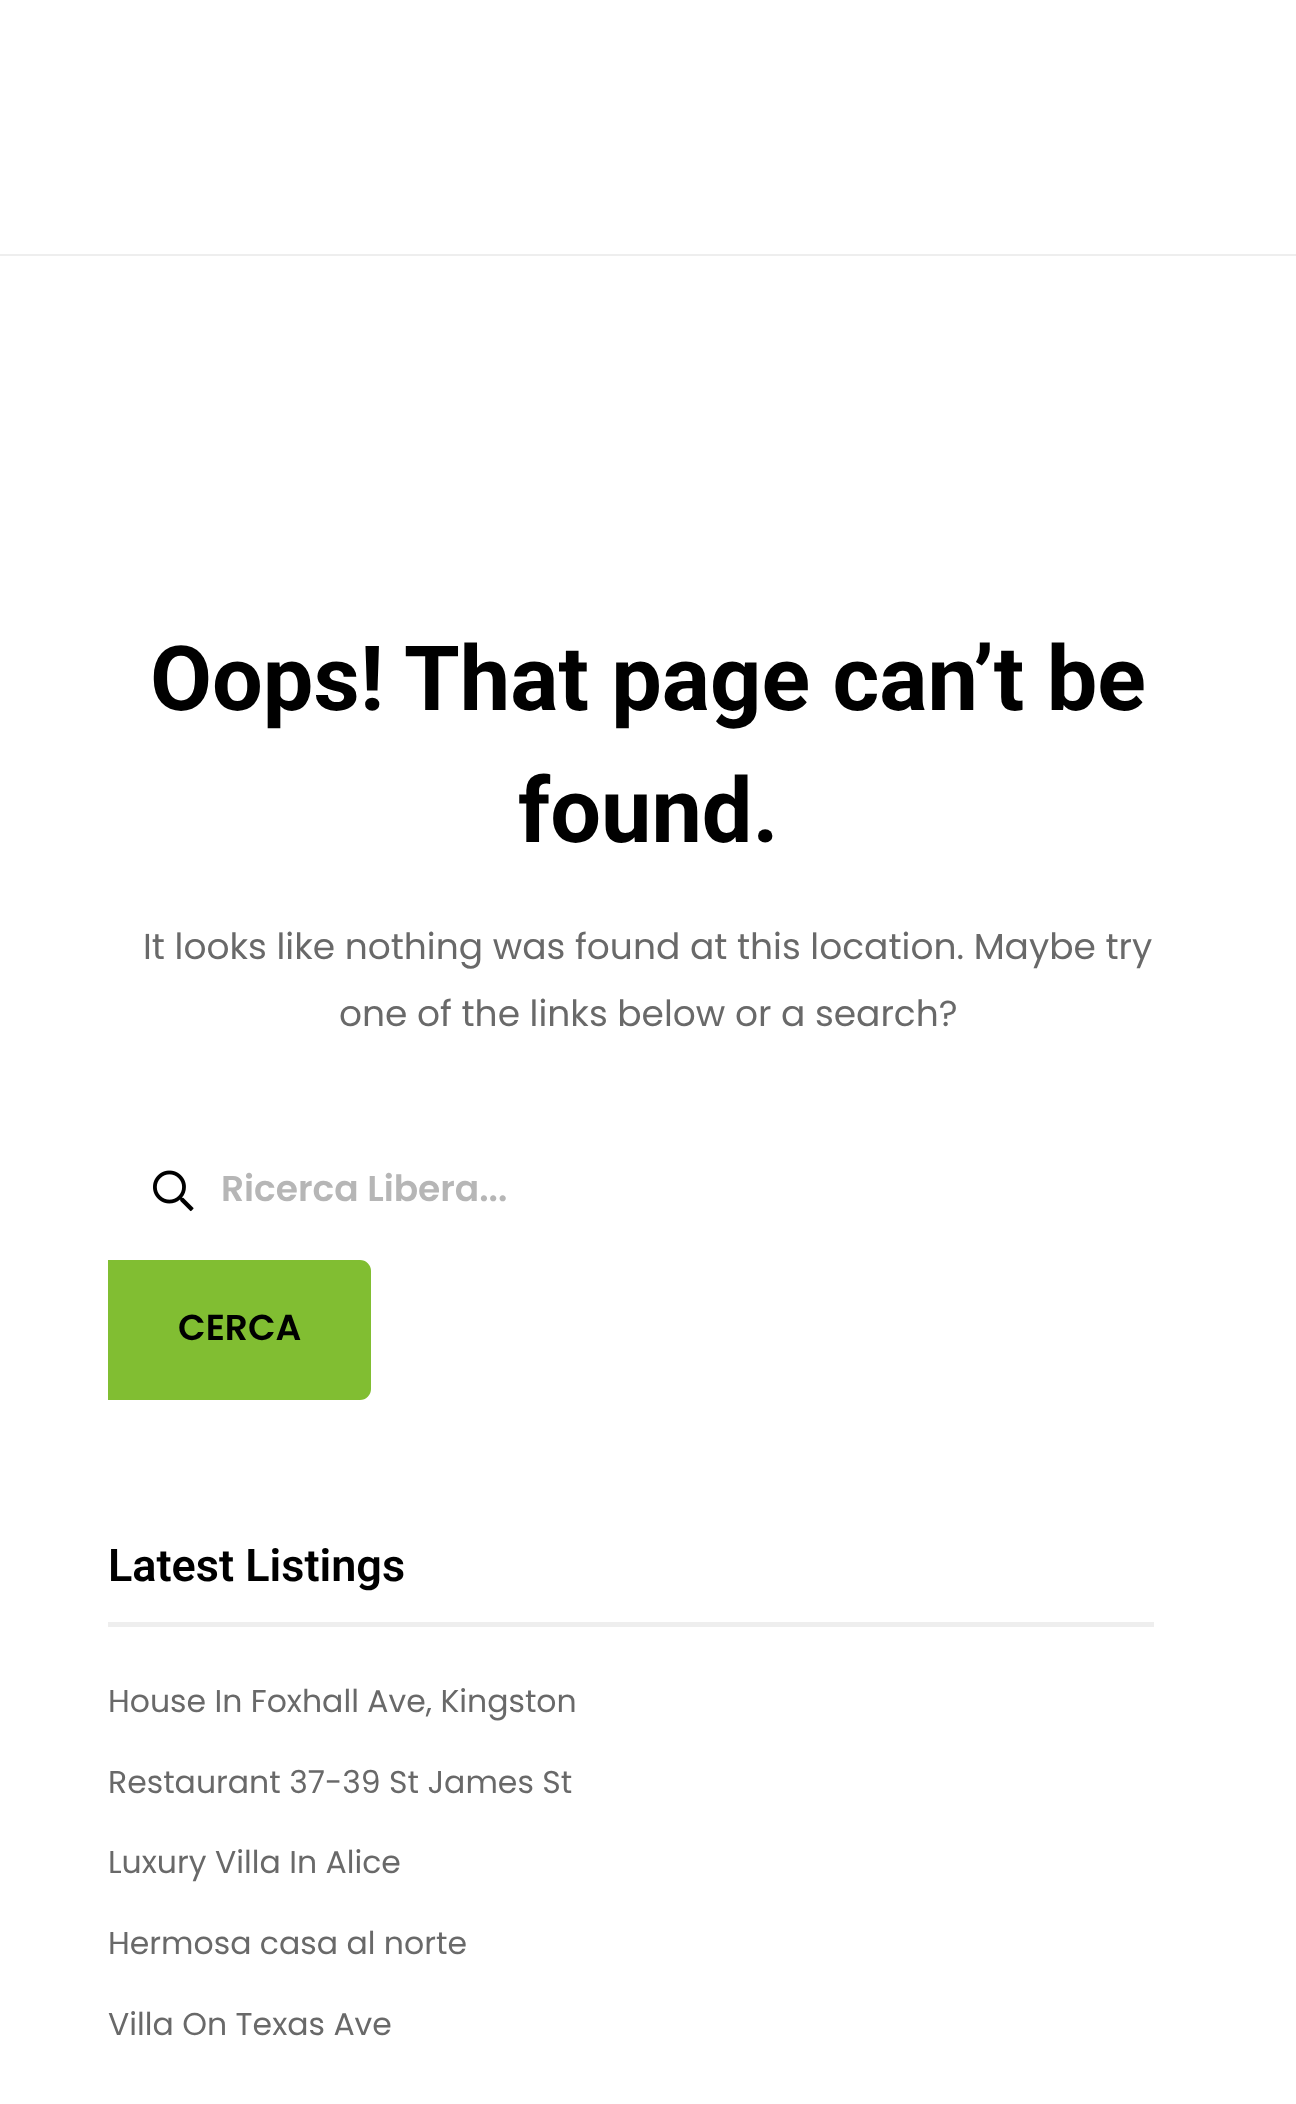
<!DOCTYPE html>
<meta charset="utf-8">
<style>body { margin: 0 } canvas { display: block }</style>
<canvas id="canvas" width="1296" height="2104"></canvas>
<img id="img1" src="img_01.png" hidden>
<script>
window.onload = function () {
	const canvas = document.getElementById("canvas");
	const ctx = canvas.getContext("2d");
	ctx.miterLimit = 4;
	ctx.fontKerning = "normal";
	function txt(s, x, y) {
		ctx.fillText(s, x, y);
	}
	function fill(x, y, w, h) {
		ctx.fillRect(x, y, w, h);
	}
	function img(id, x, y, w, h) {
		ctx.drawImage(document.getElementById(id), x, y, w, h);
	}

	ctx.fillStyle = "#FFFFFF";
	fill(0, 0, 1296, 2104);
	ctx.fillStyle = "#EEEEEE";
	fill(0, 254, 1296, 2);
	img("img1", 153, 1170, 41, 42);
	ctx.fillStyle = "#81BE32";
	ctx.beginPath();
	ctx.roundRect(109, 1261, 261, 138, [0, 10, 10, 0]);
	ctx.fill();
	ctx.strokeStyle = "#81BE32";
	ctx.lineWidth = 2;
	ctx.stroke();
	ctx.fillStyle = "#EEEEEE";
	fill(108, 1622, 1046, 5);
	ctx.font = "bold 90px Roboto";
	ctx.fillStyle = "#000000";
	txt("Oops! That page can’t be", 150, 710);
	txt("found.", 518, 842);
	ctx.font = "36px Poppins";
	ctx.fillStyle = "#696969";
	txt("It looks like nothing was found at this location. Maybe try", 143, 959);
	txt("one of the links below or a search?", 339, 1026);
	ctx.font = "600 36px Poppins";
	ctx.fillStyle = "#B6B6B6";
	txt("Ricerca Libera...", 221, 1201);
	ctx.fillStyle = "#000000";
	txt("CERCA", 178, 1340);
	ctx.font = "600 45px Roboto";
	txt("Latest Listings", 108, 1581);
	ctx.font = "31.5px Poppins";
	ctx.fillStyle = "#696969";
	txt("House In Foxhall Ave, Kingston", 108, 1712);
	txt("Restaurant 37-39 St James St", 108, 1793);
	txt("Luxury Villa In Alice", 108, 1873);
	txt("Hermosa casa al norte", 108, 1954);
	txt("Villa On Texas Ave", 108, 2035);
};
</script>
